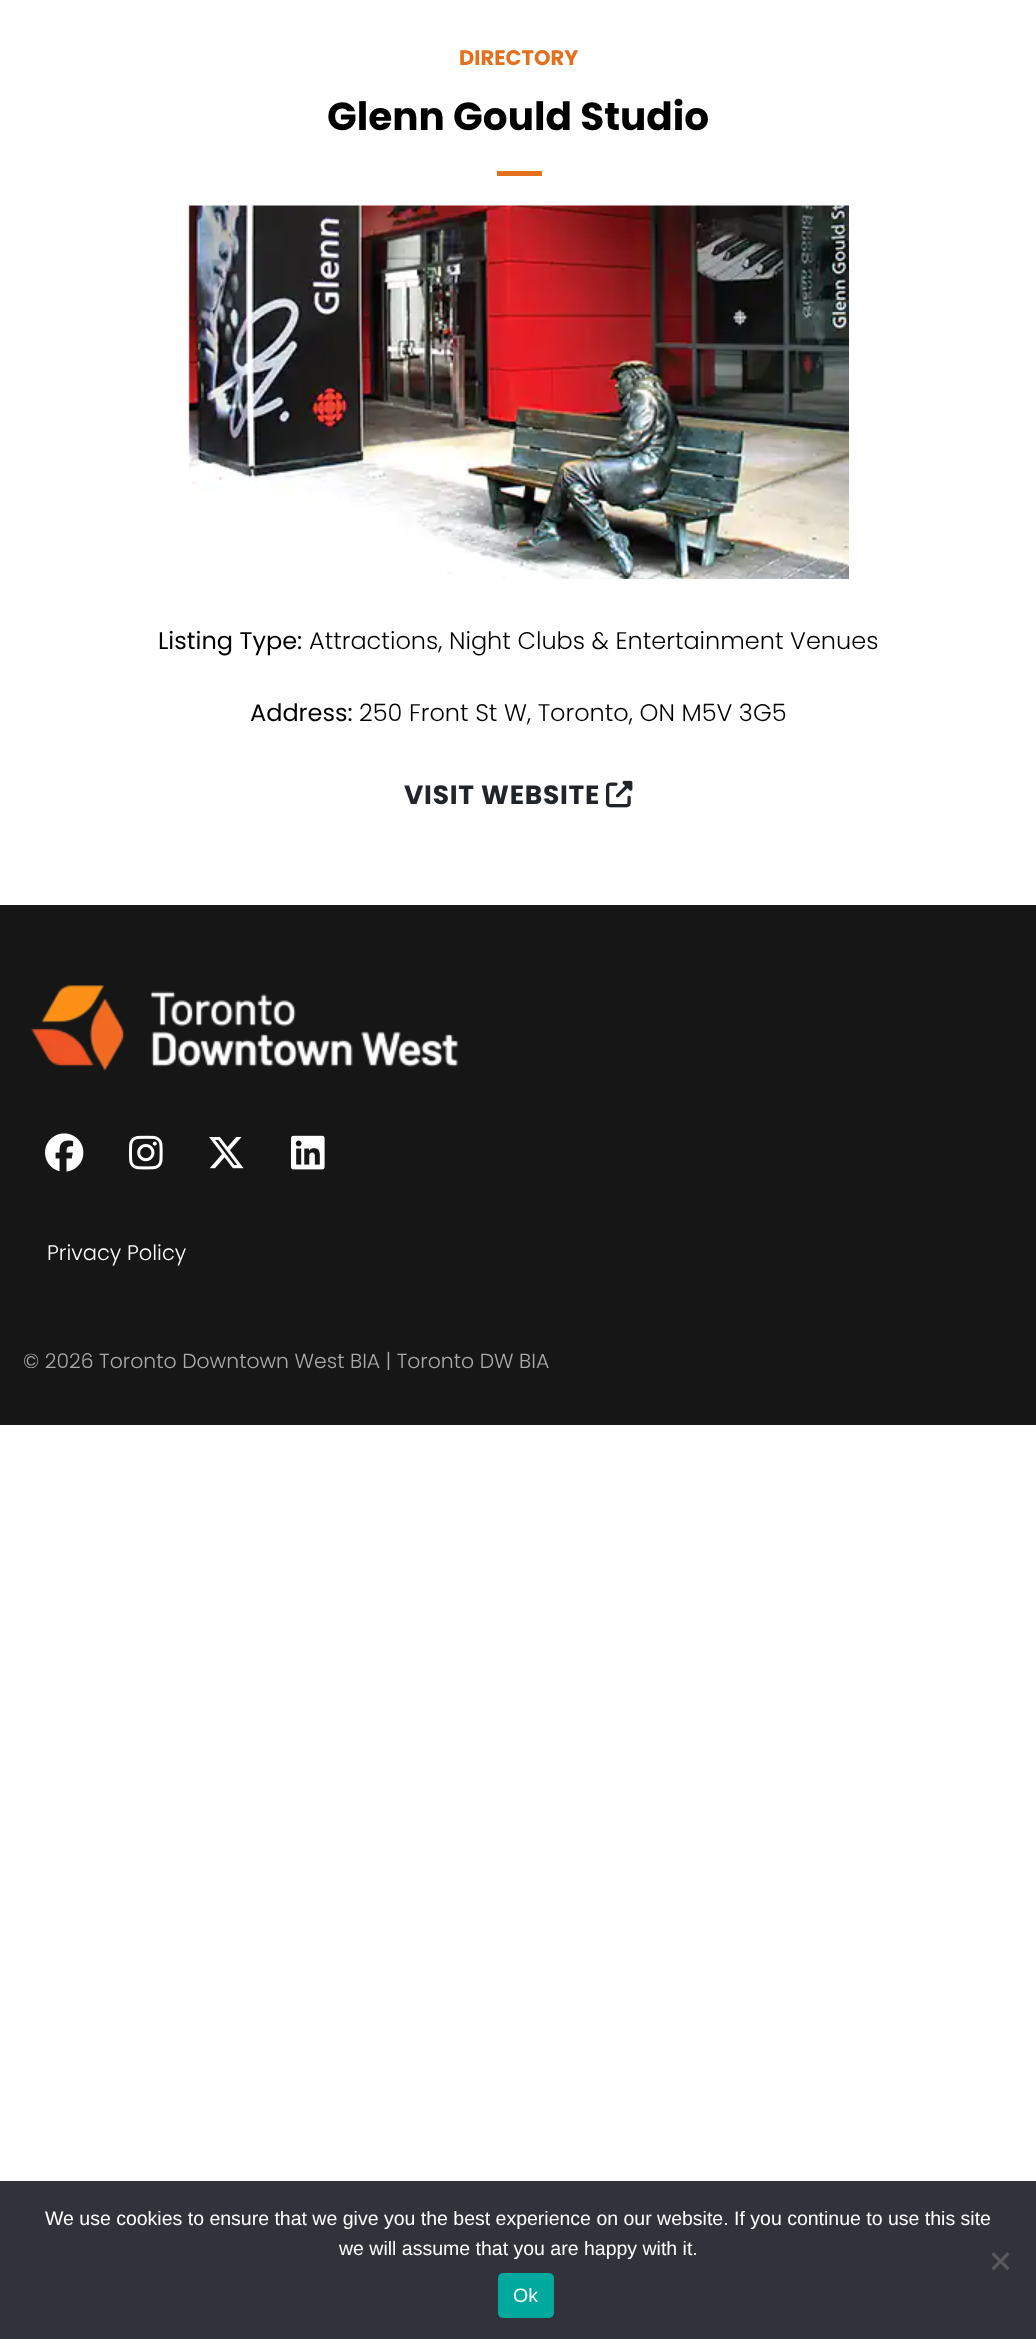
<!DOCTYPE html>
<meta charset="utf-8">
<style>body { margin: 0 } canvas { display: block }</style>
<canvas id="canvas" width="1036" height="2339"></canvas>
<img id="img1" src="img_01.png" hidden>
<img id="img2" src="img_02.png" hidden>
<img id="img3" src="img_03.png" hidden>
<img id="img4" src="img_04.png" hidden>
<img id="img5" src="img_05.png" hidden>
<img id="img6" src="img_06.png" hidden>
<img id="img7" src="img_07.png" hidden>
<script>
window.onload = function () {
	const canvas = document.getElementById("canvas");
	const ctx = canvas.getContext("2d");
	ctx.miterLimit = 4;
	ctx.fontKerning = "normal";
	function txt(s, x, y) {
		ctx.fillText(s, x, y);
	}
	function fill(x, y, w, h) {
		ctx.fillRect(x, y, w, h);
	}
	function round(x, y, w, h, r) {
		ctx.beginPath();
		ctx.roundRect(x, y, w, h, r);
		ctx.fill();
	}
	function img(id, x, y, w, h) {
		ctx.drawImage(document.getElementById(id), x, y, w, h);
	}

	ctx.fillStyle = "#FFFFFF";
	fill(0, 0, 1036, 2339);
	ctx.fillStyle = "#E4701D";
	fill(497, 171, 45, 5);
	img("img1", 188, 205, 661, 374);
	img("img2", 606, 780, 27, 28);
	ctx.fillStyle = "#161616";
	fill(0, 905, 1036, 520);
	img("img3", 31, 985, 427, 86);
	img("img4", 45, 1133, 39, 39);
	img("img5", 129, 1135, 34, 35);
	img("img6", 209, 1137, 35, 32);
	img("img7", 291, 1135, 34, 35);
	ctx.fillStyle = "#32323A";
	fill(0, 2181, 1036, 158);
	ctx.fillStyle = "#59595D";
	ctx.beginPath();
	ctx.moveTo(1007.5, 2252);
	ctx.lineTo(1009.5, 2254.5);
	ctx.lineTo(993.5, 2270.5);
	ctx.lineTo(991.5, 2268);
	ctx.closePath();
	ctx.fill();
	ctx.beginPath();
	ctx.moveTo(991.5, 2254.5);
	ctx.lineTo(993.5, 2252);
	ctx.lineTo(1009.5, 2268);
	ctx.lineTo(1007.5, 2270.5);
	ctx.closePath();
	ctx.fill();
	ctx.fillStyle = "#00A99D";
	round(498, 2273, 56, 45, 5);
	ctx.font = "bold 21px Poppins";
	ctx.fillStyle = "#E4701D";
	txt("DIRECTORY", 459, 65);
	ctx.font = "bold 39px Poppins";
	ctx.fillStyle = "#000000";
	txt("Glenn Gould Studio", 327, 130);
	ctx.font = "24px Poppins";
	txt("Listing Type:", 158, 649);
	ctx.font = "300 24px Poppins";
	txt("Attractions, Night Clubs & Entertainment Venues", 309, 649);
	ctx.font = "24px Poppins";
	txt("Address:", 250, 721);
	ctx.font = "300 24px Poppins";
	txt("250 Front St W, Toronto, ON M5V 3G5", 359, 721);
	ctx.letterSpacing = "0.75px";
	ctx.font = "bold 26.5px Poppins";
	ctx.fillStyle = "#212529";
	txt("VISIT WEBSITE", 404, 804);
	ctx.letterSpacing = "0px";
	ctx.font = "300 21px Poppins";
	ctx.fillStyle = "#FFFFFF";
	txt("Privacy Policy", 47, 1260);
	ctx.font = "300 20.4px Poppins";
	ctx.fillStyle = "#AAAAAA";
	txt("© 2026 Toronto Downtown West BIA | Toronto DW BIA", 23, 1368);
	ctx.font = "19.5px Liberation Sans";
	ctx.fillStyle = "#FFFFFF";
	txt("We use cookies to ensure that we give you the best experience on our website. If you continue to use this site", 45, 2225);
	txt("we will assume that you are happy with it.", 339, 2255);
	txt("Ok", 513, 2302);
};
</script>
